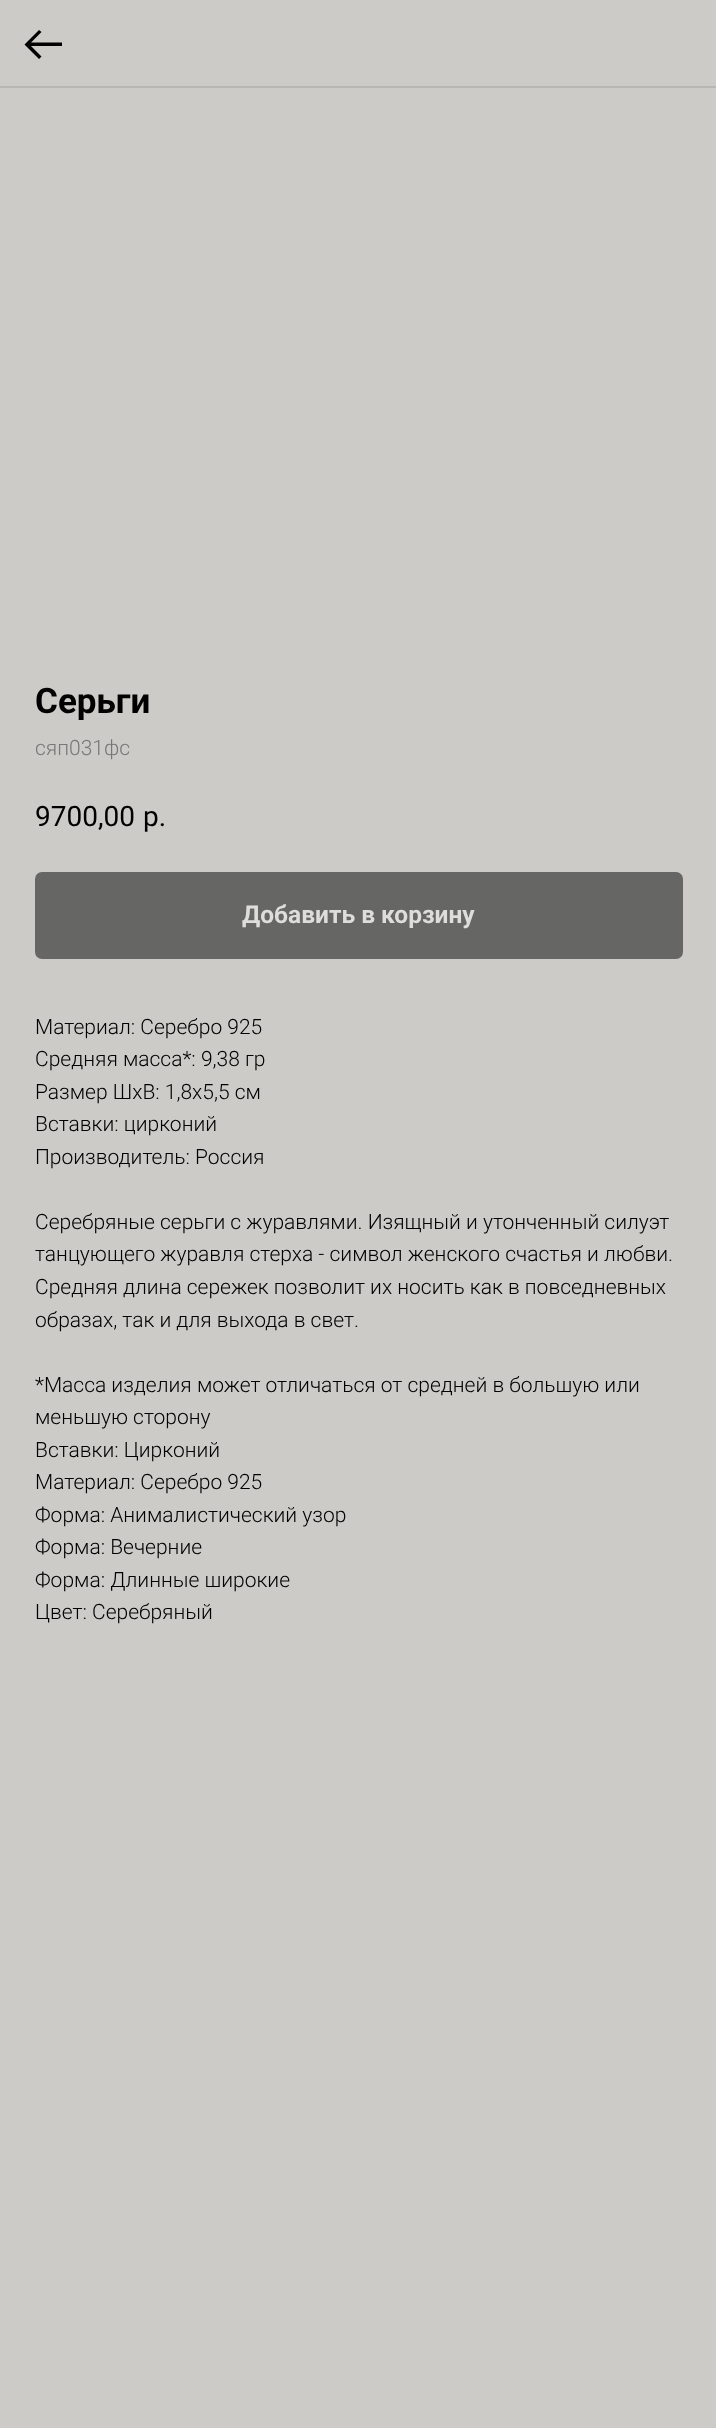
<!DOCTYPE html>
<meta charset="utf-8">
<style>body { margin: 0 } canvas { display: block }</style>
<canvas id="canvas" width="716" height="2428"></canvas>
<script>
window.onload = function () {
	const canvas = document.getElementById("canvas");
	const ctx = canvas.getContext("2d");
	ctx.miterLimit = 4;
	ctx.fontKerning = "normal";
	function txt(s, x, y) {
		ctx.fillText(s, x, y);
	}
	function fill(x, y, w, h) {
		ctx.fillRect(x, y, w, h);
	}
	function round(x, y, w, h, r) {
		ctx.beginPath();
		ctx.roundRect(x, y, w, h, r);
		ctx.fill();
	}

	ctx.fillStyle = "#CCCBC7";
	fill(0, 0, 716, 2428);
	ctx.fillStyle = "#B8B7B3";
	fill(0, 86, 716, 2);
	ctx.fillStyle = "#000000";
	ctx.beginPath();
	ctx.moveTo(39, 30);
	ctx.lineTo(41.5, 32);
	ctx.lineTo(31, 42.5);
	ctx.lineTo(62, 42.5);
	ctx.lineTo(62, 46);
	ctx.lineTo(31, 46);
	ctx.lineTo(41.5, 56.5);
	ctx.lineTo(39, 59);
	ctx.lineTo(24.5, 44.5);
	ctx.closePath();
	ctx.fill();
	ctx.fillStyle = "#666664";
	round(35, 872, 648, 87, 7);
	ctx.font = "bold 35px Roboto";
	ctx.fillStyle = "#000000";
	txt("Серьги", 35, 713);
	ctx.font = "300 21px Roboto";
	ctx.fillStyle = "#777777";
	txt("сяп031фс", 35, 755);
	ctx.font = "28px Roboto";
	ctx.fillStyle = "#000000";
	txt("9700,00", 35, 826);
	txt("р.", 143, 826);
	ctx.font = "bold 24.5px Roboto";
	ctx.fillStyle = "#DEDDDB";
	txt("Добавить в корзину", 242, 923);
	ctx.font = "300 21px Roboto";
	ctx.fillStyle = "#000000";
	txt("Материал: Серебро 925", 35, 1034);
	txt("Средняя масса*: 9,38 гр", 35, 1066);
	txt("Размер ШхВ: 1,8х5,5 см", 35, 1099);
	txt("Вставки: цирконий", 35, 1131);
	txt("Производитель: Россия", 35, 1164);
	txt("Серебряные серьги с журавлями. Изящный и утонченный силуэт", 35, 1229);
	txt("танцующего журавля стерха - символ женского счастья и любви.", 35, 1261);
	txt("Средняя длина сережек позволит их носить как в повседневных", 35, 1294);
	txt("образах, так и для выхода в свет.", 35, 1327);
	txt("*Масса изделия может отличаться от средней в большую или", 35, 1392);
	txt("меньшую сторону", 35, 1424);
	txt("Вставки: Цирконий", 35, 1457);
	txt("Материал: Серебро 925", 35, 1489);
	txt("Форма: Анималистический узор", 35, 1522);
	txt("Форма: Вечерние", 35, 1554);
	txt("Форма: Длинные широкие", 35, 1587);
	txt("Цвет: Серебряный", 35, 1619);
};
</script>
